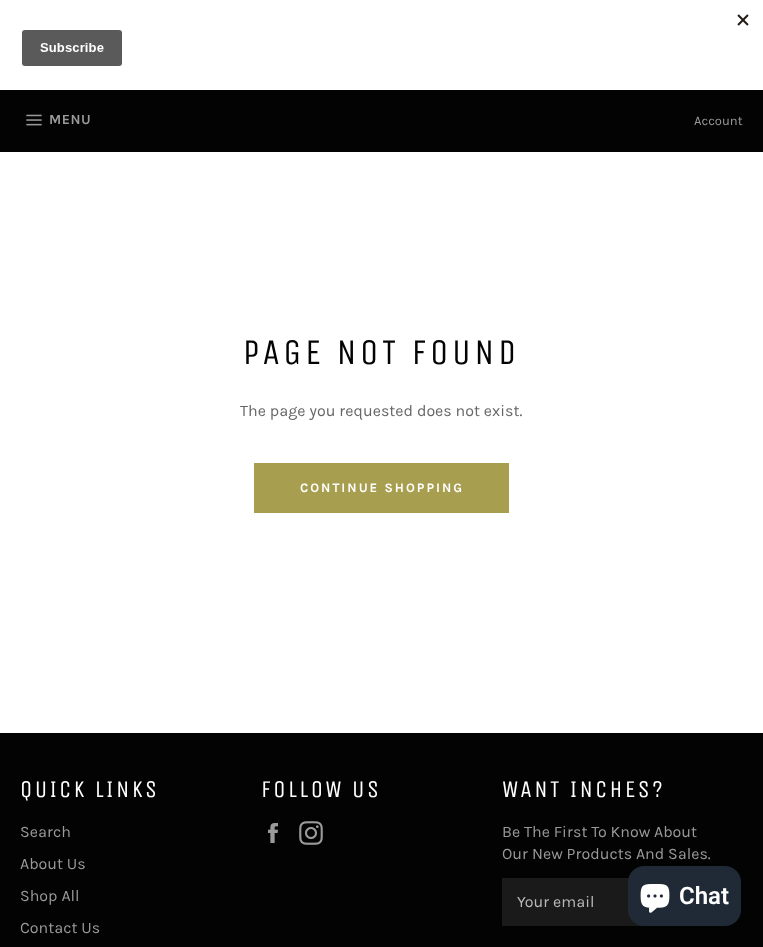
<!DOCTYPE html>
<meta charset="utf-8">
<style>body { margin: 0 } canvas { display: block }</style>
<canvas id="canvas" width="763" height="947"></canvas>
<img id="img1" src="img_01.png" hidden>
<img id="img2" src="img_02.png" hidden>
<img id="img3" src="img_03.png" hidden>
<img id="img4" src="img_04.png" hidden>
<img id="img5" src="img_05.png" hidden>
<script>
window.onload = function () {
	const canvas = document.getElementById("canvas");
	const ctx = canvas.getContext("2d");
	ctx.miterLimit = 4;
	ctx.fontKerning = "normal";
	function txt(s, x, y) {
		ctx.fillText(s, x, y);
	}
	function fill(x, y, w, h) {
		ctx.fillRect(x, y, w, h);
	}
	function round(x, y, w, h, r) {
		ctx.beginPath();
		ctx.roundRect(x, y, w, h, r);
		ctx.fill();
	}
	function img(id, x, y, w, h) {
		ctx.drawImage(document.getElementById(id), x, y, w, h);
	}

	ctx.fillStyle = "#FFFFFF";
	fill(0, 0, 763, 947);
	img("img1", 22, 14, 727, 52);
	ctx.fillStyle = "#030303";
	fill(0, 90, 763, 62);
	img("img2", 26, 114, 16, 12);
	ctx.fillStyle = "#A79E4F";
	fill(254, 463, 255, 50);
	ctx.fillStyle = "#030303";
	fill(0, 733, 763, 214);
	img("img3", 268, 823, 10, 20);
	img("img4", 299, 821, 24, 24);
	ctx.fillStyle = "#1A1A1A";
	fill(502, 878, 142, 48);
	ctx.fillStyle = "#202A36";
	round(628, 866, 113, 60, 16);
	img("img5", 640, 884, 30, 29);
	ctx.letterSpacing = "0.5px";
	ctx.font = "bold 14px Karla";
	ctx.fillStyle = "#9A9A9A";
	txt("MENU", 49, 124);
	ctx.letterSpacing = "0px";
	ctx.font = "13px Karla";
	txt("Account", 694, 125);
	ctx.letterSpacing = "3.6px";
	ctx.font = "36px Unica One";
	ctx.fillStyle = "#030303";
	txt("PAGE NOT FOUND", 243, 364);
	ctx.letterSpacing = "0px";
	ctx.font = "16px Karla";
	ctx.fillStyle = "#666666";
	txt("The page you requested does not exist.", 240, 416);
	ctx.letterSpacing = "2px";
	ctx.font = "bold 13px Karla";
	ctx.fillStyle = "#FFFFFF";
	txt("CONTINUE SHOPPING", 300, 492);
	ctx.letterSpacing = "2.4px";
	ctx.font = "24px Unica One";
	txt("QUICK LINKS", 20, 797);
	ctx.letterSpacing = "0px";
	ctx.font = "16px Karla";
	ctx.fillStyle = "#9A9A9A";
	txt("Search", 20, 837);
	txt("About Us", 20, 869);
	txt("Shop All", 20, 901);
	txt("Contact Us", 20, 933);
	ctx.letterSpacing = "2.4px";
	ctx.font = "24px Unica One";
	ctx.fillStyle = "#FFFFFF";
	txt("FOLLOW US", 261, 797);
	txt("WANT INCHES?", 502, 797);
	ctx.letterSpacing = "0px";
	ctx.font = "16px Karla";
	ctx.fillStyle = "#9A9A9A";
	txt("Be The First To Know About", 502, 837);
	txt("Our New Products And Sales.", 502, 859);
	ctx.fillStyle = "#BABABA";
	txt("Your email", 517, 907);
	ctx.font = "600 24px Roboto";
	ctx.fillStyle = "#FFFFFF";
	txt("Chat", 679, 904);
};
</script>
